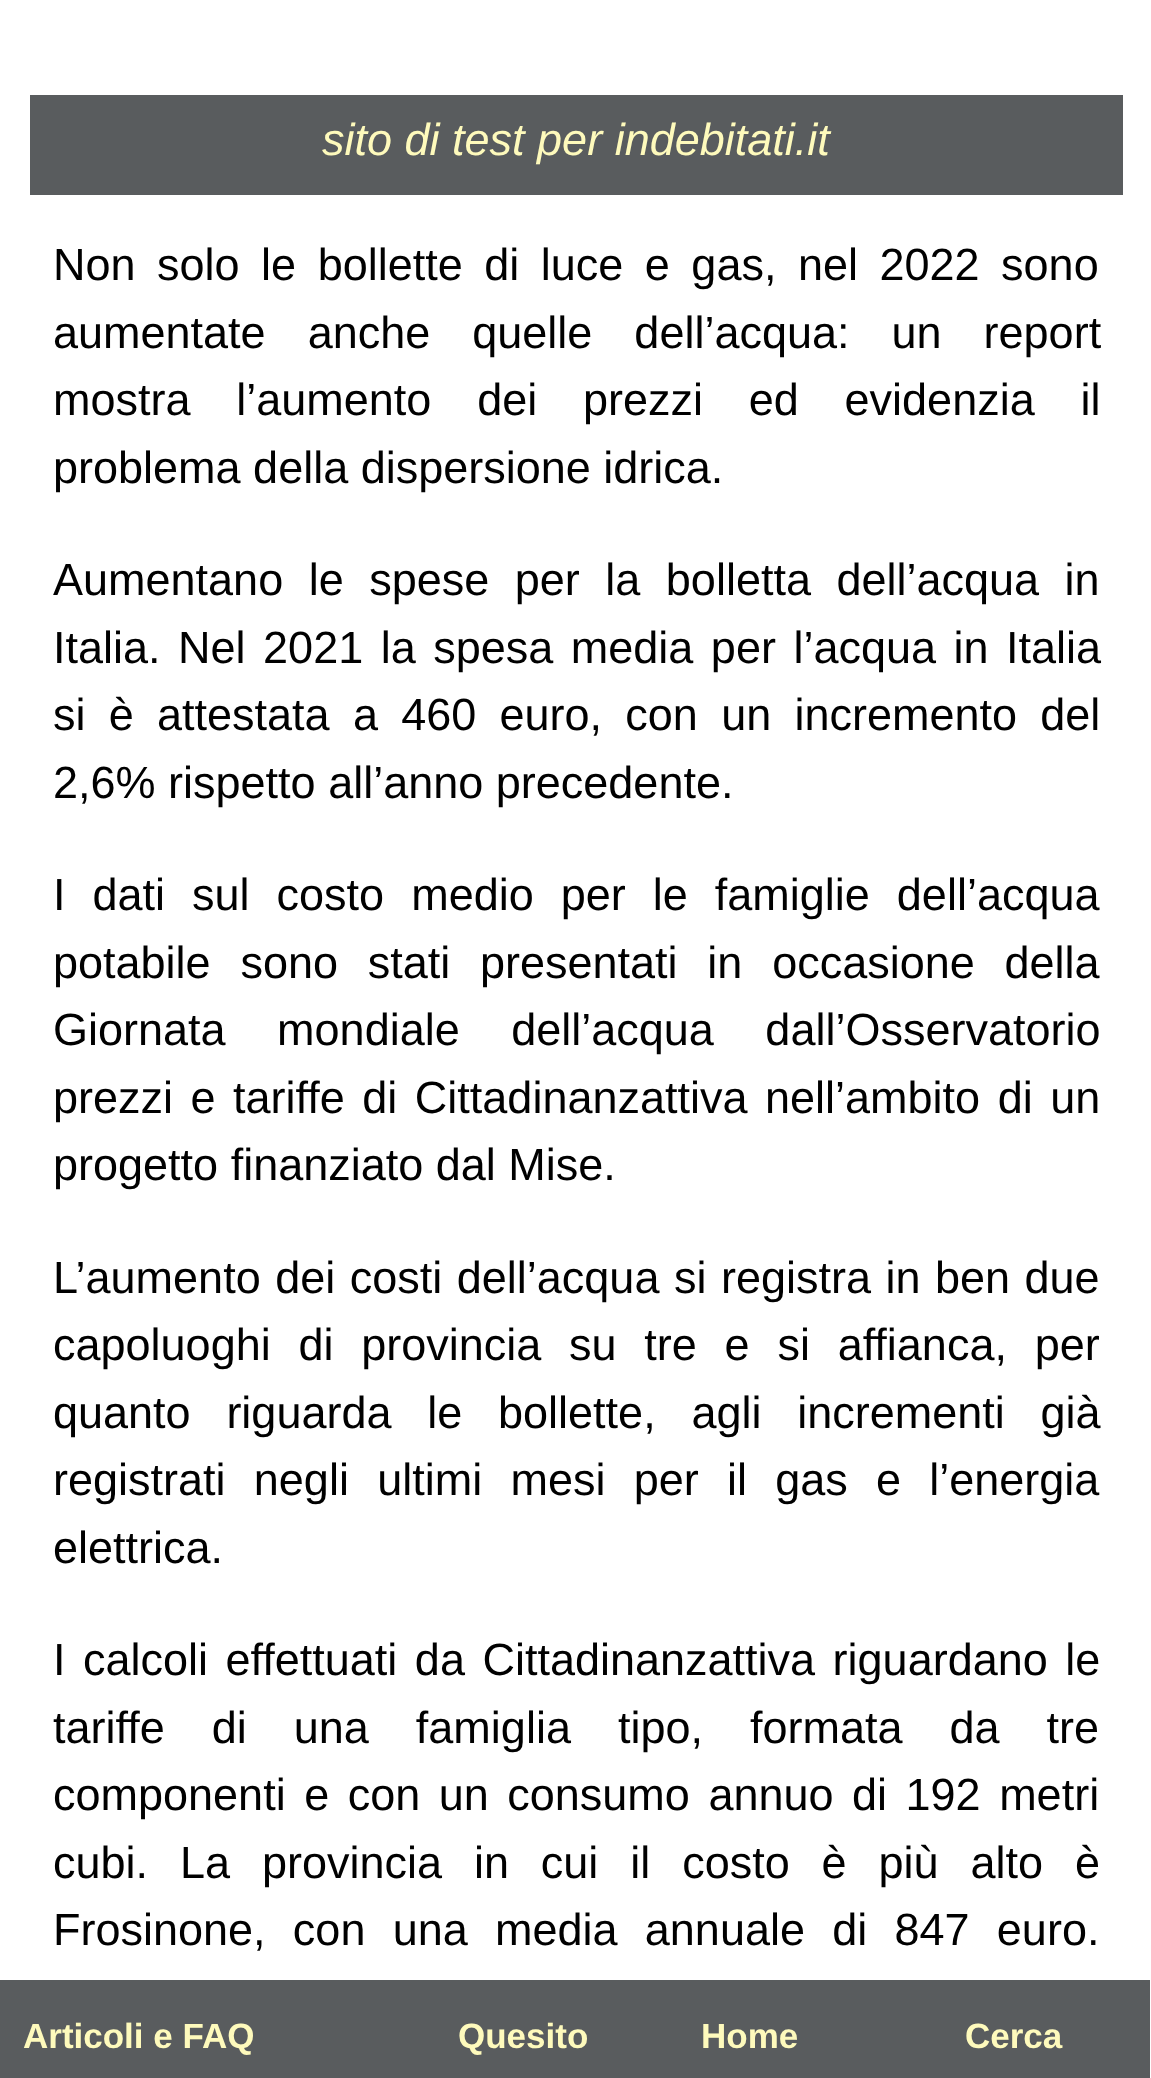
<!DOCTYPE html>
<meta charset="utf-8">
<style>body { margin: 0 } canvas { display: block }</style>
<canvas id="canvas" width="1151" height="2078"></canvas>
<script>
window.onload = function () {
	const canvas = document.getElementById("canvas");
	const ctx = canvas.getContext("2d");
	ctx.miterLimit = 4;
	ctx.fontKerning = "normal";
	function txt(s, x, y) {
		ctx.fillText(s, x, y);
	}
	function fill(x, y, w, h) {
		ctx.fillRect(x, y, w, h);
	}

	ctx.fillStyle = "#FFFFFF";
	fill(0, 0, 1151, 2078);
	ctx.fillStyle = "#595C5E";
	fill(30, 95, 1093, 100);
	fill(0, 1980, 1150, 98);
	ctx.font = "italic 45px Liberation Sans";
	ctx.fillStyle = "#FEFABC";
	txt("sito di test per indebitati.it", 322, 155);
	ctx.font = "bold 35px Liberation Sans";
	txt("Articoli e FAQ", 23, 2048);
	txt("Quesito", 458, 2048);
	txt("Home", 701, 2048);
	txt("Cerca", 965, 2048);
	ctx.wordSpacing = "9px";
	ctx.font = "45px Liberation Sans";
	ctx.fillStyle = "#000000";
	txt("Non solo le bollette di luce e gas, nel 2022 sono", 53, 280);
	ctx.wordSpacing = "29.5px";
	txt("aumentate anche quelle dell’acqua: un report", 53, 348);
	ctx.wordSpacing = "33.25px";
	txt("mostra l’aumento dei prezzi ed evidenzia il", 53, 415);
	ctx.wordSpacing = "0px";
	txt("problema della dispersione idrica.", 53, 483);
	ctx.wordSpacing = "13px";
	txt("Aumentano le spese per la bolletta dell’acqua in", 53, 595);
	ctx.wordSpacing = "5px";
	txt("Italia. Nel 2021 la spesa media per l’acqua in Italia", 53, 663);
	ctx.wordSpacing = "10.75px";
	txt("si è attestata a 460 euro, con un incremento del", 53, 730);
	ctx.wordSpacing = "0px";
	txt("2,6% rispetto all’anno precedente.", 53, 798);
	ctx.wordSpacing = "14.5px";
	txt("I dati sul costo medio per le famiglie dell’acqua", 53, 910);
	ctx.wordSpacing = "17.25px";
	txt("potabile sono stati presentati in occasione della", 53, 978);
	ctx.wordSpacing = "39px";
	txt("Giornata mondiale dell’acqua dall’Osservatorio", 53, 1045);
	ctx.wordSpacing = "5px";
	txt("prezzi e tariffe di Cittadinanzattiva nell’ambito di un", 53, 1113);
	ctx.wordSpacing = "0px";
	txt("progetto finanziato dal Mise.", 53, 1180);
	ctx.wordSpacing = "2px";
	txt("L’aumento dei costi dell’acqua si registra in ben due", 53, 1293);
	ctx.wordSpacing = "15.25px";
	txt("capoluoghi di provincia su tre e si affianca, per", 53, 1360);
	ctx.wordSpacing = "23.25px";
	txt("quanto riguarda le bollette, agli incrementi già", 53, 1428);
	ctx.wordSpacing = "15.75px";
	txt("registrati negli ultimi mesi per il gas e l’energia", 53, 1495);
	ctx.wordSpacing = "0px";
	txt("elettrica.", 53, 1563);
	ctx.wordSpacing = "5px";
	txt("I calcoli effettuati da Cittadinanzattiva riguardano le", 53, 1675);
	ctx.wordSpacing = "34.5px";
	txt("tariffe di una famiglia tipo, formata da tre", 53, 1743);
	ctx.wordSpacing = "6px";
	txt("componenti e con un consumo annuo di 192 metri", 53, 1810);
	ctx.wordSpacing = "19.4px";
	txt("cubi. La provincia in cui il costo è più alto è", 53, 1878);
	ctx.wordSpacing = "14.75px";
	txt("Frosinone, con una media annuale di 847 euro.", 53, 1945);
};
</script>
